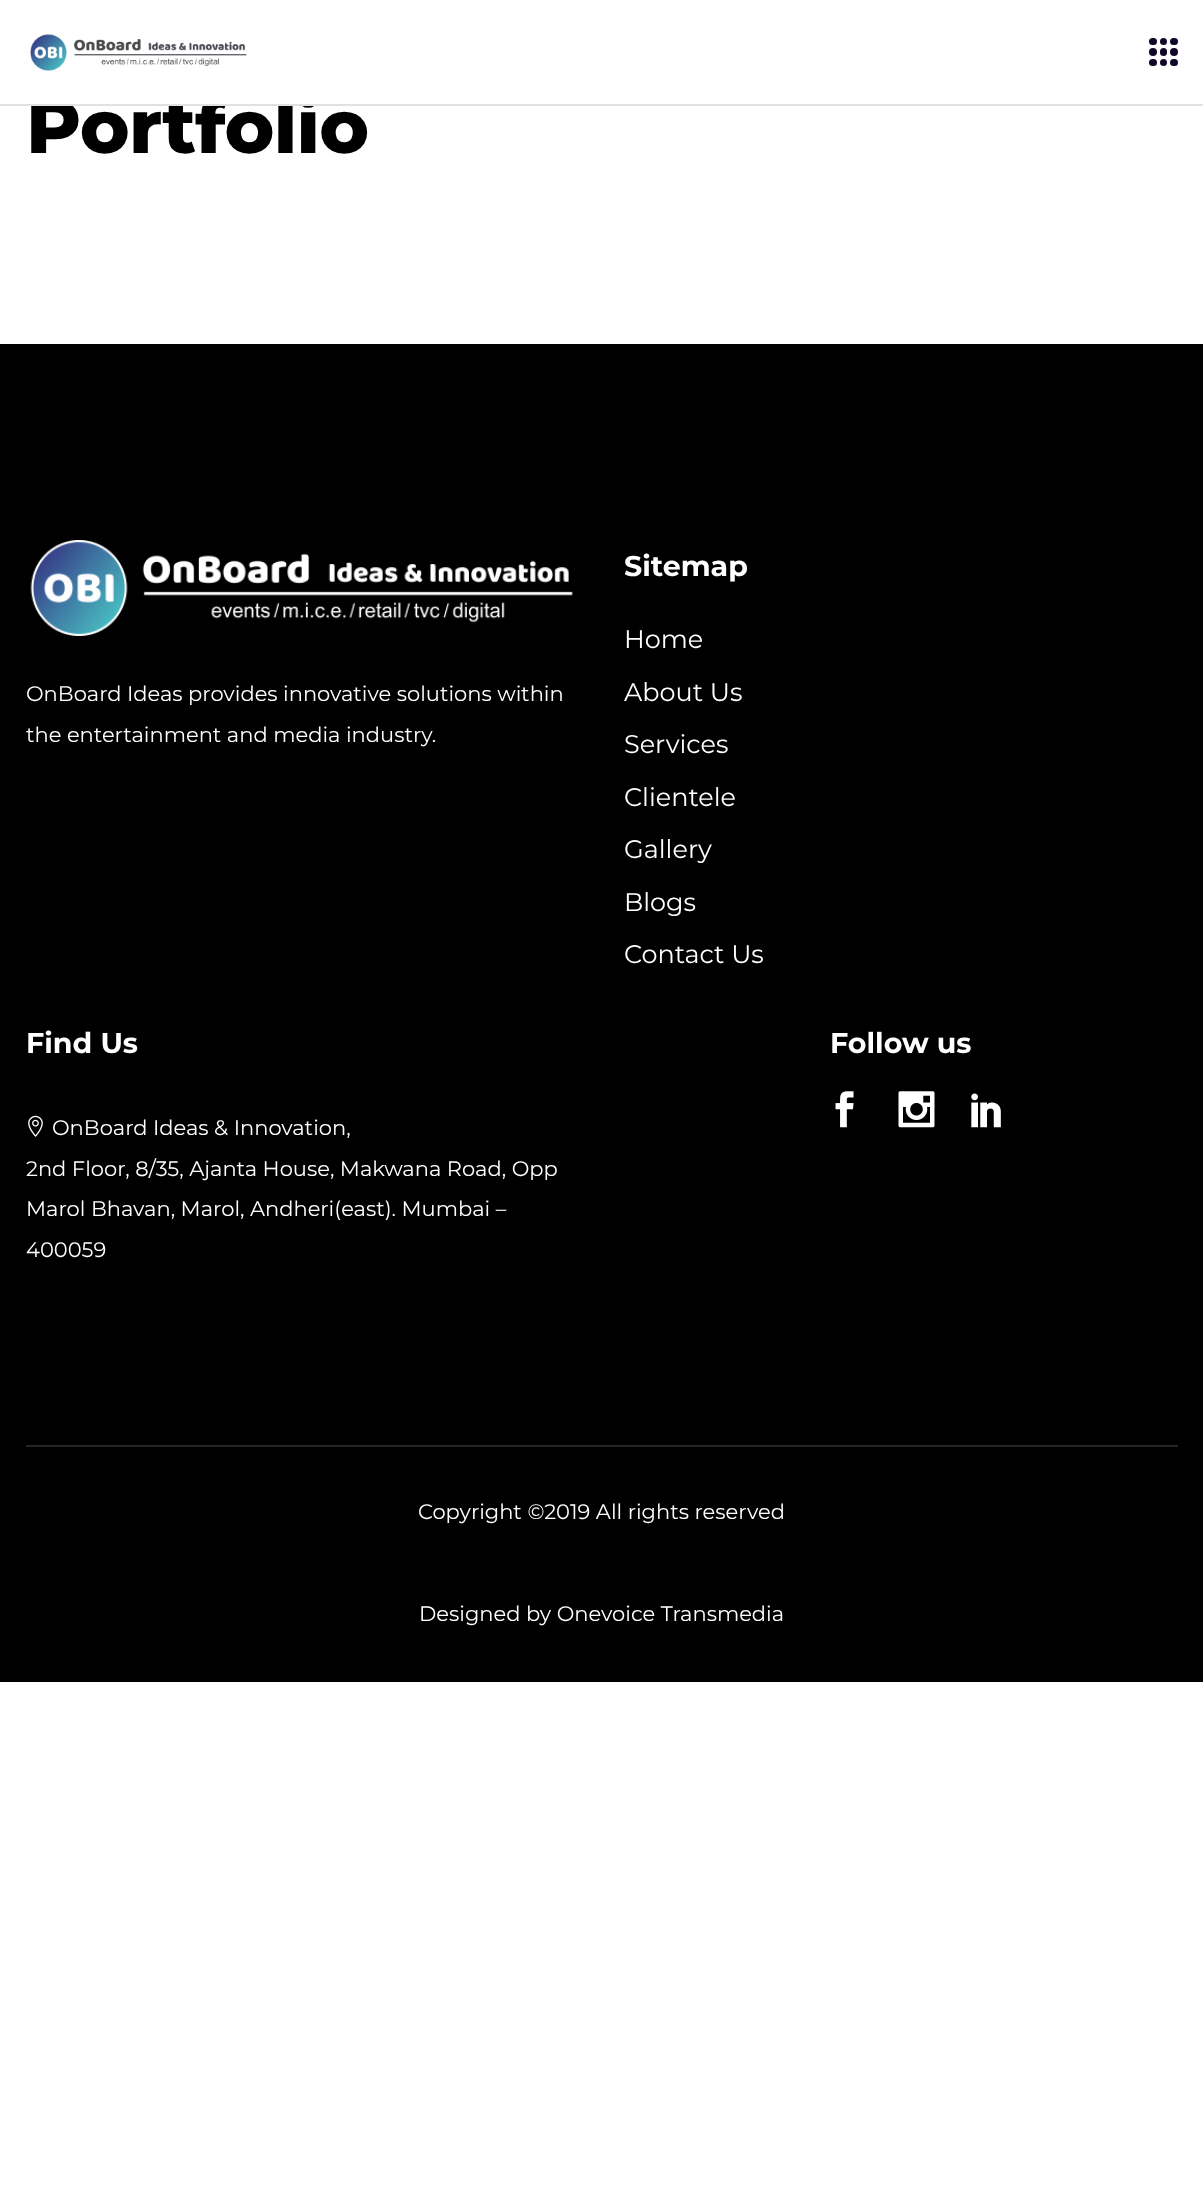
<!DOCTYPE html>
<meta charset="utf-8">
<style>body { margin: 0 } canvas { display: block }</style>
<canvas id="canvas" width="1203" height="2189"></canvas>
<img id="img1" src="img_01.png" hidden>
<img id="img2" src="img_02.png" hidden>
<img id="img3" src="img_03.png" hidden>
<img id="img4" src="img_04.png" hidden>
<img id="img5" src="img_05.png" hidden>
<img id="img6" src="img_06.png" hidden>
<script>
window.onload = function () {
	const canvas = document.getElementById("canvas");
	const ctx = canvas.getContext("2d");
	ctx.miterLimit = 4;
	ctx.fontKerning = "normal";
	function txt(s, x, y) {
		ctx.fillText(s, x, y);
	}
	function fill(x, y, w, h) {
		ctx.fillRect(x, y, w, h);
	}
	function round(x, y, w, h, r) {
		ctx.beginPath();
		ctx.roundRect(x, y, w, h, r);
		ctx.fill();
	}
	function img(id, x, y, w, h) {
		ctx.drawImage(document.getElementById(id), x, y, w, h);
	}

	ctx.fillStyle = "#FFFFFF";
	fill(0, 0, 1203, 2189);
	img("img1", 30, 34, 217, 37);
	ctx.fillStyle = "#110729";
	round(1149, 38, 8, 7, 3.5);
	ctx.beginPath();
	ctx.arc(1163.5, 41.5, 3.5, 0, Math.PI * 2);
	ctx.fill();
	round(1170, 38, 8, 7, 3.5);
	ctx.beginPath();
	ctx.arc(1153, 52, 4, 0, Math.PI * 2);
	ctx.fill();
	round(1160, 48, 7, 8, 3.5);
	ctx.beginPath();
	ctx.arc(1174, 52, 4, 0, Math.PI * 2);
	ctx.fill();
	round(1149, 59, 8, 7, 3.5);
	ctx.beginPath();
	ctx.arc(1163.5, 62.5, 3.5, 0, Math.PI * 2);
	ctx.fill();
	round(1170, 59, 8, 7, 3.5);
	ctx.fillStyle = "#000000";
	fill(0, 344, 1203, 1338);
	img("img2", 30, 540, 543, 96);
	img("img3", 28, 1115, 15, 22);
	img("img4", 835, 1091, 19, 37);
	img("img5", 898, 1091, 37, 37);
	img("img6", 971, 1093, 30, 35);
	ctx.fillStyle = "#252525";
	fill(26, 1445, 1152, 2);
	ctx.letterSpacing = "-0.75px";
	ctx.font = "800 75px Montserrat";
	ctx.fillStyle = "#000000";
	txt("Portfolio", 26, 153);
	ctx.fillStyle = "#E1E1E1";
	fill(0, 104, 1203, 2);
	ctx.fillStyle = "#FFFFFF";
	fill(30, 92, 287, 12);
	ctx.letterSpacing = "0px";
	ctx.font = "21px Montserrat";
	txt("OnBoard Ideas provides innovative solutions within", 26, 701);
	txt("the entertainment and media industry.", 26, 742);
	ctx.font = "bold 28.5px Montserrat";
	txt("Sitemap", 624, 576);
	ctx.font = "25.5px Montserrat";
	txt("Home", 624, 648);
	txt("About Us", 624, 701);
	txt("Services", 624, 753);
	txt("Clientele", 624, 806);
	txt("Gallery", 624, 858);
	txt("Blogs", 624, 911);
	txt("Contact Us", 624, 963);
	ctx.font = "bold 28.5px Montserrat";
	txt("Find Us", 26, 1053);
	ctx.font = "21px Montserrat";
	txt("OnBoard Ideas & Innovation,", 52, 1135);
	txt("2nd Floor, 8/35, Ajanta House, Makwana Road, Opp", 26, 1176);
	txt("Marol Bhavan, Marol, Andheri(east). Mumbai –", 26, 1216);
	txt("400059", 26, 1257);
	ctx.font = "bold 28.5px Montserrat";
	txt("Follow us", 830, 1053);
	ctx.font = "21px Montserrat";
	txt("Copyright ©2019 All rights reserved", 418, 1519);
	txt("Designed by Onevoice Transmedia", 419, 1621);
};
</script>
